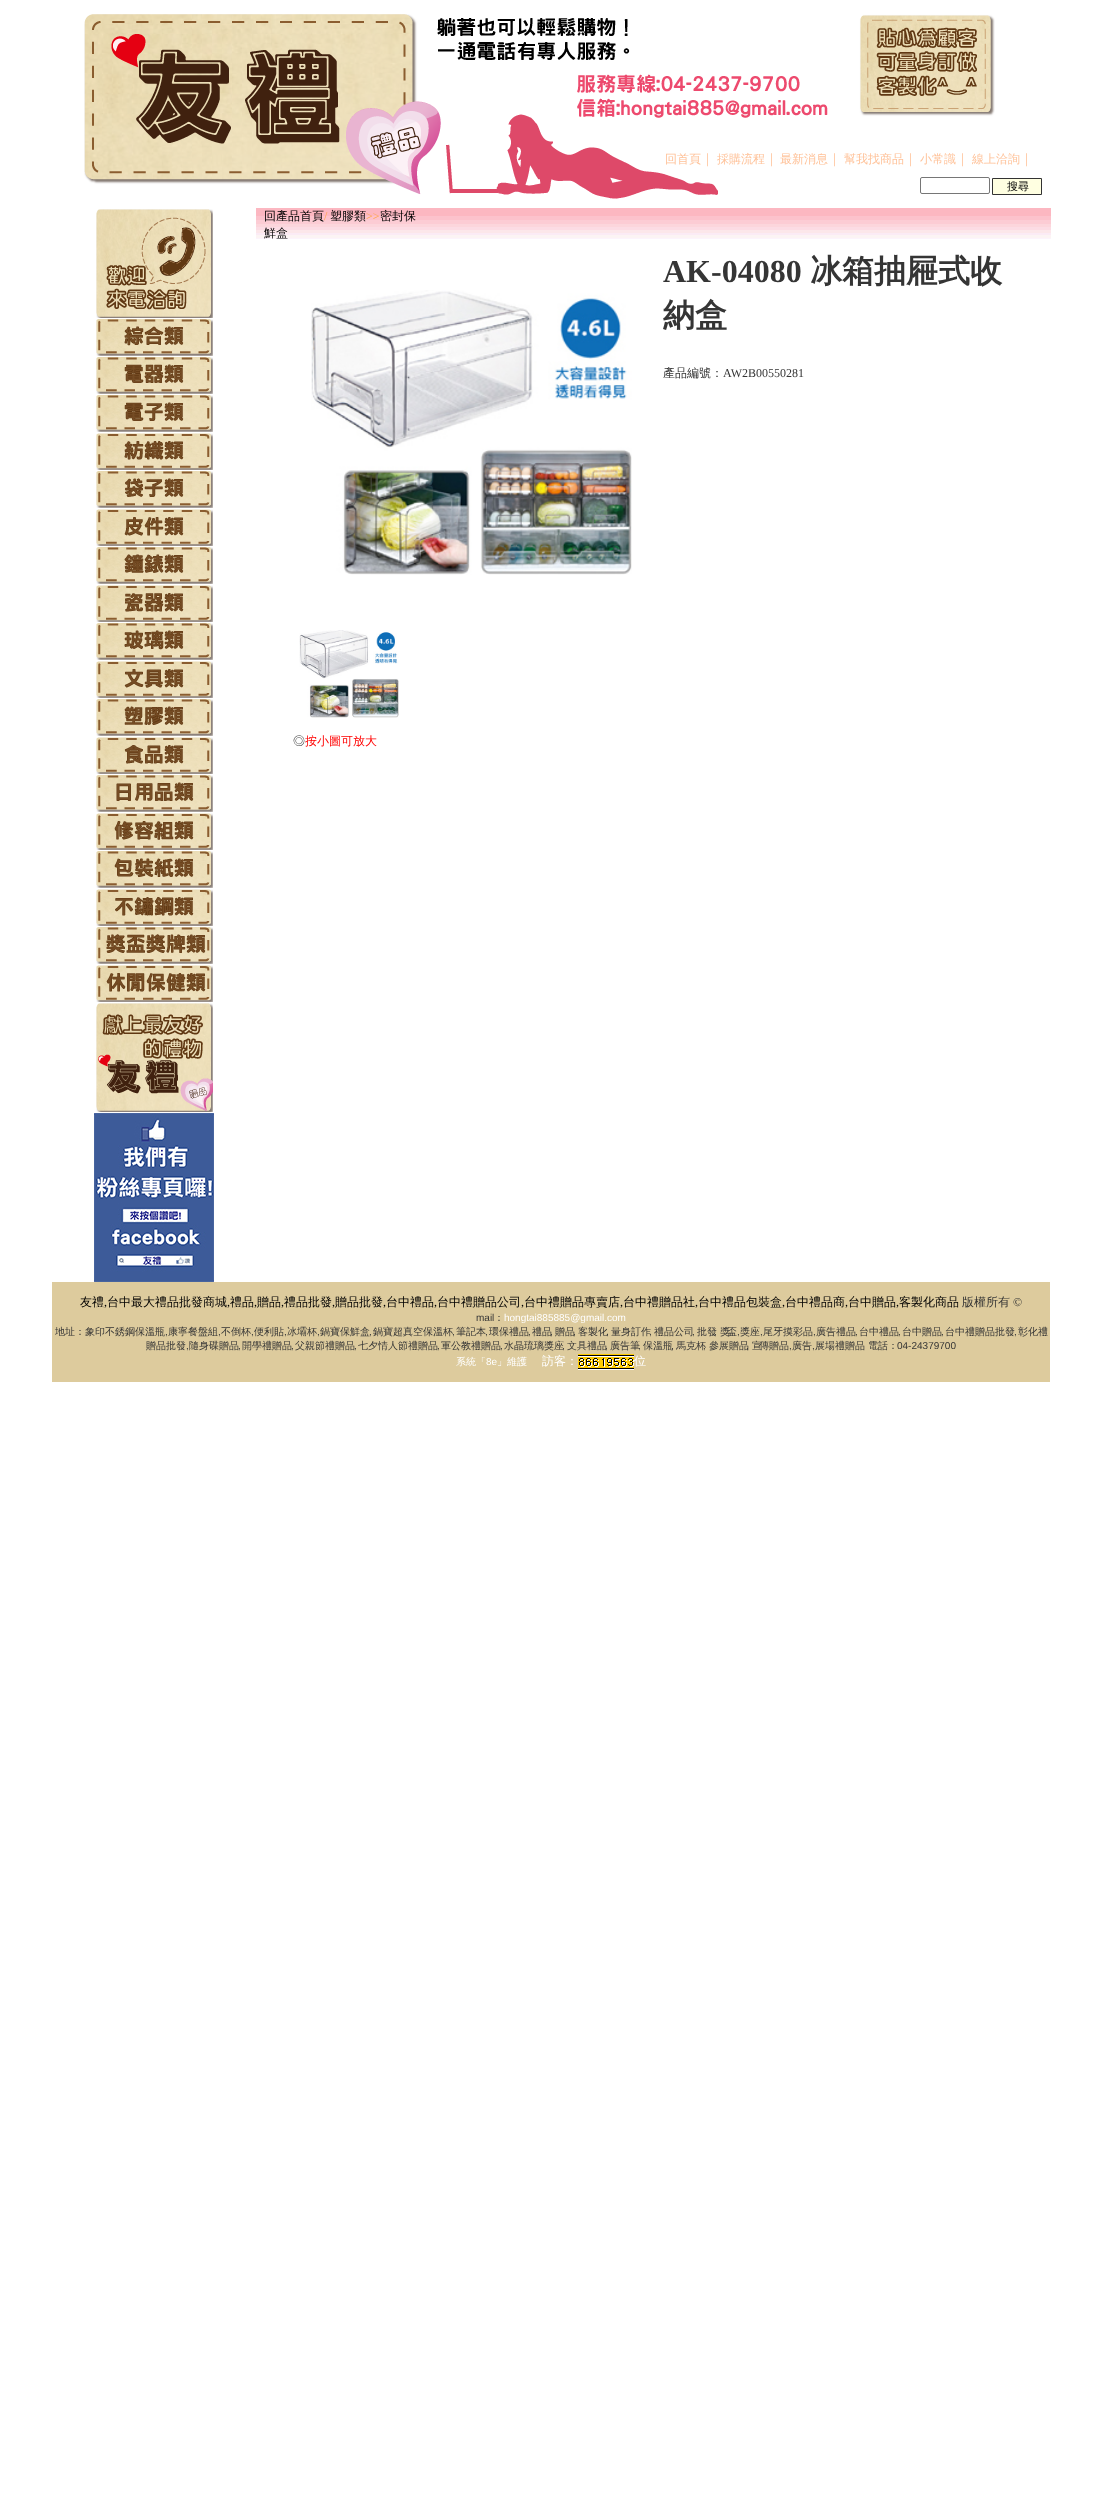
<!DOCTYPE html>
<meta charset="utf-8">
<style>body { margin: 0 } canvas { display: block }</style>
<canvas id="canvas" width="1102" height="2512"></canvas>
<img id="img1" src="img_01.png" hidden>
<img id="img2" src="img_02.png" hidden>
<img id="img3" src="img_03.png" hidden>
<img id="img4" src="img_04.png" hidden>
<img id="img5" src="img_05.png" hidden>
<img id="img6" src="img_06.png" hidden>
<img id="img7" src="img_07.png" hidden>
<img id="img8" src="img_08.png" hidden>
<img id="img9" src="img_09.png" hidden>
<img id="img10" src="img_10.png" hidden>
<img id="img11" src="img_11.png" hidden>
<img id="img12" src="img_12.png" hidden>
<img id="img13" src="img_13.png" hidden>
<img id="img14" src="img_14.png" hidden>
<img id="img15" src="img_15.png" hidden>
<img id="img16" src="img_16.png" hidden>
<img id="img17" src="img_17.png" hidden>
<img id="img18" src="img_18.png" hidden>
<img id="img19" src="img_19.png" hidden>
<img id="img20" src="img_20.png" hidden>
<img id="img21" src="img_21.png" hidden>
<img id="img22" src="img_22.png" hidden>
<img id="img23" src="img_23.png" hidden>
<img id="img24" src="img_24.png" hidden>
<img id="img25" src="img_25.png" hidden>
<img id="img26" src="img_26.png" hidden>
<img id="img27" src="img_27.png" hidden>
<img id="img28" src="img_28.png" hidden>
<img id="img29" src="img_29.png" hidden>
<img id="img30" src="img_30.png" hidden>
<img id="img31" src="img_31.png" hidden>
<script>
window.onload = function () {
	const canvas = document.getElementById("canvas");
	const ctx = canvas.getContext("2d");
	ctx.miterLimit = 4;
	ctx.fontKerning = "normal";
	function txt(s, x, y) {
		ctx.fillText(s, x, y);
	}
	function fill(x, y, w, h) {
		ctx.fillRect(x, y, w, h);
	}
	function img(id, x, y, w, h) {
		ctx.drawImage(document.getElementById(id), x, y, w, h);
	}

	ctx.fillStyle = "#FFFFFF";
	fill(0, 0, 1102, 2512);
	img("img1", 84, 14, 911, 185);
	ctx.beginPath();
	ctx.roundRect(920.5, 177.5, 69, 16, 1.5);
	ctx.strokeStyle = "#767676";
	ctx.stroke();
	ctx.fillStyle = "#FFFFE1";
	ctx.beginPath();
	ctx.rect(992.5, 178.5, 49, 16);
	ctx.fill();
	ctx.strokeStyle = "#333333";
	ctx.stroke();
	img("img2", 96, 209, 117, 109);
	img("img3", 96, 319, 117, 37);
	img("img4", 96, 357, 117, 37);
	img("img5", 96, 395, 117, 37);
	img("img6", 96, 433, 117, 37);
	img("img7", 96, 471, 117, 37);
	img("img8", 96, 509, 117, 37);
	img("img9", 96, 547, 117, 37);
	img("img10", 96, 585, 117, 37);
	img("img11", 96, 623, 117, 37);
	img("img12", 96, 661, 117, 37);
	img("img13", 96, 699, 117, 37);
	img("img14", 96, 737, 117, 37);
	img("img15", 96, 775, 117, 37);
	img("img16", 96, 813, 117, 37);
	img("img17", 96, 851, 117, 37);
	img("img18", 96, 889, 117, 37);
	img("img19", 96, 927, 117, 37);
	img("img20", 96, 965, 117, 37);
	img("img21", 96, 1003, 117, 109);
	img("img22", 94, 1113, 120, 169);
	img("img23", 256, 208, 795, 31);
	img("img24", 311, 290, 321, 285);
	img("img25", 299, 630, 100, 88);
	ctx.fillStyle = "#DDCB9D";
	fill(52, 1282, 998, 100);
	img("img26", 578, 1354, 7, 16);
	img("img27", 585, 1354, 7, 16);
	img("img27", 592, 1354, 7, 16);
	img("img28", 599, 1354, 7, 16);
	img("img29", 606, 1354, 7, 16);
	img("img30", 613, 1354, 7, 16);
	img("img27", 620, 1354, 7, 16);
	img("img31", 627, 1354, 7, 16);
	ctx.font = "500 12px WenQuanYi Zen Hei";
	ctx.fillStyle = "#FFC299";
	txt("回首頁", 665, 163);
	ctx.font = "500 13px WenQuanYi Zen Hei";
	txt("｜", 701, 163);
	ctx.font = "500 12px WenQuanYi Zen Hei";
	txt("採購流程", 717, 163);
	ctx.font = "500 13px WenQuanYi Zen Hei";
	txt("｜", 765, 163);
	ctx.font = "500 12px WenQuanYi Zen Hei";
	txt("最新消息", 780, 163);
	ctx.font = "500 13px WenQuanYi Zen Hei";
	txt("｜", 828, 163);
	ctx.font = "500 12px WenQuanYi Zen Hei";
	txt("幫我找商品", 844, 163);
	ctx.font = "500 13px WenQuanYi Zen Hei";
	txt("｜", 904, 163);
	ctx.font = "500 12px WenQuanYi Zen Hei";
	txt("小常識", 920, 163);
	ctx.font = "500 13px WenQuanYi Zen Hei";
	txt("｜", 956, 163);
	ctx.font = "500 12px WenQuanYi Zen Hei";
	txt("線上洽詢", 972, 163);
	ctx.font = "500 13px WenQuanYi Zen Hei";
	txt("｜", 1020, 163);
	ctx.font = "500 11px WenQuanYi Zen Hei";
	ctx.fillStyle = "#000000";
	txt("搜尋", 1007, 190);
	ctx.font = "500 12px WenQuanYi Zen Hei";
	txt("回產品首頁", 264, 220);
	ctx.font = "12px Liberation Serif";
	ctx.fillStyle = "#FFA545";
	txt("/", 324, 220);
	ctx.font = "500 12px WenQuanYi Zen Hei";
	ctx.fillStyle = "#000000";
	txt("塑膠類", 330, 220);
	ctx.font = "12px Liberation Serif";
	ctx.fillStyle = "#FFA545";
	txt(">>", 366, 220);
	ctx.font = "500 12px WenQuanYi Zen Hei";
	ctx.fillStyle = "#000000";
	txt("密封保", 380, 220);
	txt("鮮盒", 264, 237);
	ctx.font = "bold 32px Liberation Serif";
	ctx.fillStyle = "#353535";
	txt("AK-04080", 663, 282);
	ctx.font = "bold 32px WenQuanYi Zen Hei";
	txt("冰箱抽屜式收", 810, 282);
	txt("納盒", 663, 326);
	ctx.font = "500 12px WenQuanYi Zen Hei";
	txt("產品編號：", 663, 377);
	ctx.font = "12px Liberation Serif";
	txt("AW2B00550281", 723, 377);
	ctx.font = "500 12px WenQuanYi Zen Hei";
	txt("◎", 293, 745);
	ctx.fillStyle = "#FF0000";
	txt("按小圖可放大", 305, 745);
	ctx.fillStyle = "#000000";
	txt("友禮", 80, 1306);
	ctx.font = "12px Liberation Serif";
	txt(",", 104, 1306);
	ctx.font = "500 12px WenQuanYi Zen Hei";
	txt("台中最大禮品批發商城", 107, 1306);
	ctx.font = "12px Liberation Serif";
	txt(",", 227, 1306);
	ctx.font = "500 12px WenQuanYi Zen Hei";
	txt("禮品", 230, 1306);
	ctx.font = "12px Liberation Serif";
	txt(",", 254, 1306);
	ctx.font = "500 12px WenQuanYi Zen Hei";
	txt("贈品", 257, 1306);
	ctx.font = "12px Liberation Serif";
	txt(",", 281, 1306);
	ctx.font = "500 12px WenQuanYi Zen Hei";
	txt("禮品批發", 284, 1306);
	ctx.font = "12px Liberation Serif";
	txt(",", 332, 1306);
	ctx.font = "500 12px WenQuanYi Zen Hei";
	txt("贈品批發", 335, 1306);
	ctx.font = "12px Liberation Serif";
	txt(",", 383, 1306);
	ctx.font = "500 12px WenQuanYi Zen Hei";
	txt("台中禮品", 386, 1306);
	ctx.font = "12px Liberation Serif";
	txt(",", 434, 1306);
	ctx.font = "500 12px WenQuanYi Zen Hei";
	txt("台中禮贈品公司", 437, 1306);
	ctx.font = "12px Liberation Serif";
	txt(",", 521, 1306);
	ctx.font = "500 12px WenQuanYi Zen Hei";
	txt("台中禮贈品專賣店", 524, 1306);
	ctx.font = "12px Liberation Serif";
	txt(",", 620, 1306);
	ctx.font = "500 12px WenQuanYi Zen Hei";
	txt("台中禮贈品社", 623, 1306);
	ctx.font = "12px Liberation Serif";
	txt(",", 695, 1306);
	ctx.font = "500 12px WenQuanYi Zen Hei";
	txt("台中禮品包裝盒", 698, 1306);
	ctx.font = "12px Liberation Serif";
	txt(",", 782, 1306);
	ctx.font = "500 12px WenQuanYi Zen Hei";
	txt("台中禮品商", 785, 1306);
	ctx.font = "12px Liberation Serif";
	txt(",", 845, 1306);
	ctx.font = "500 12px WenQuanYi Zen Hei";
	txt("台中贈品", 848, 1306);
	ctx.font = "12px Liberation Serif";
	txt(",", 896, 1306);
	ctx.font = "500 12px WenQuanYi Zen Hei";
	txt("客製化商品", 899, 1306);
	ctx.fillStyle = "#353535";
	txt("版權所有", 962, 1306);
	ctx.font = "12px Liberation Serif";
	txt("©", 1013, 1306);
	ctx.font = "10px Liberation Sans";
	txt("mail", 476, 1321);
	ctx.font = "500 10px WenQuanYi Zen Hei";
	txt("：", 494, 1321);
	ctx.font = "10px Liberation Sans";
	ctx.fillStyle = "#FFFFFF";
	txt("hongtai885885@gmail.com", 504, 1321);
	ctx.font = "500 10px WenQuanYi Zen Hei";
	ctx.fillStyle = "#353535";
	txt("地址：象印不銹鋼保溫瓶 康寧餐盤組 不倒杯 便利貼 冰壩杯 鍋寶保鮮盒 鍋寶超真空保溫杯 筆記本 環保禮品 禮品 贈品 客製化 量身訂作 禮品公司 批發 獎", 55, 1335);
	txt("盃 獎座 尾牙摸彩品 廣告禮品 台中禮品 台中贈品 台中禮贈品批發 彰化禮", 727, 1335);
	ctx.font = "10px Liberation Sans";
	txt(",", 165, 1335);
	txt(",", 218, 1335);
	txt(",", 251, 1335);
	txt(",", 284, 1335);
	txt(",", 317, 1335);
	txt(",", 369, 1335);
	txt(",", 452, 1335);
	txt(",", 485, 1335);
	txt(",", 528, 1335);
	txt(",", 550, 1335);
	txt(",", 573, 1335);
	txt(",", 606, 1335);
	txt(",", 649, 1335);
	txt(",", 692, 1335);
	txt(",", 714, 1335);
	txt(",", 737, 1335);
	txt(",", 760, 1335);
	txt(",", 813, 1335);
	txt(",", 855, 1335);
	txt(",", 898, 1335);
	txt(",", 941, 1335);
	txt(",", 1014, 1335);
	ctx.font = "500 10px WenQuanYi Zen Hei";
	txt("贈品批發 隨身碟贈品 開學禮贈品 父親節禮贈品 七夕情人節禮贈品 軍公教禮贈品 水晶琉璃獎座 文具禮品 廣告筆 保溫瓶 馬克杯 參展贈品 宣", 146, 1349);
	txt("傳贈品 廣告 展場禮贈品 電話：", 759, 1349);
	ctx.font = "10px Liberation Sans";
	txt("04-24379700", 897, 1349);
	txt(",", 186, 1349);
	txt(",", 238, 1349);
	txt(",", 291, 1349);
	txt(",", 354, 1349);
	txt(",", 437, 1349);
	txt(",", 500, 1349);
	txt(",", 562, 1349);
	txt(",", 605, 1349);
	txt(",", 638, 1349);
	txt(",", 671, 1349);
	txt(",", 703, 1349);
	txt(",", 746, 1349);
	txt(",", 789, 1349);
	txt(",", 812, 1349);
	ctx.font = "500 10px WenQuanYi Zen Hei";
	ctx.fillStyle = "#FFFFFF";
	txt("系統「", 456, 1365);
	ctx.font = "10px Liberation Sans";
	txt("8e", 486, 1365);
	ctx.font = "500 10px WenQuanYi Zen Hei";
	txt("」維護", 497, 1365);
	ctx.font = "500 12px WenQuanYi Zen Hei";
	txt("訪客：", 542, 1365);
	txt("位", 634, 1365);
};
</script>
